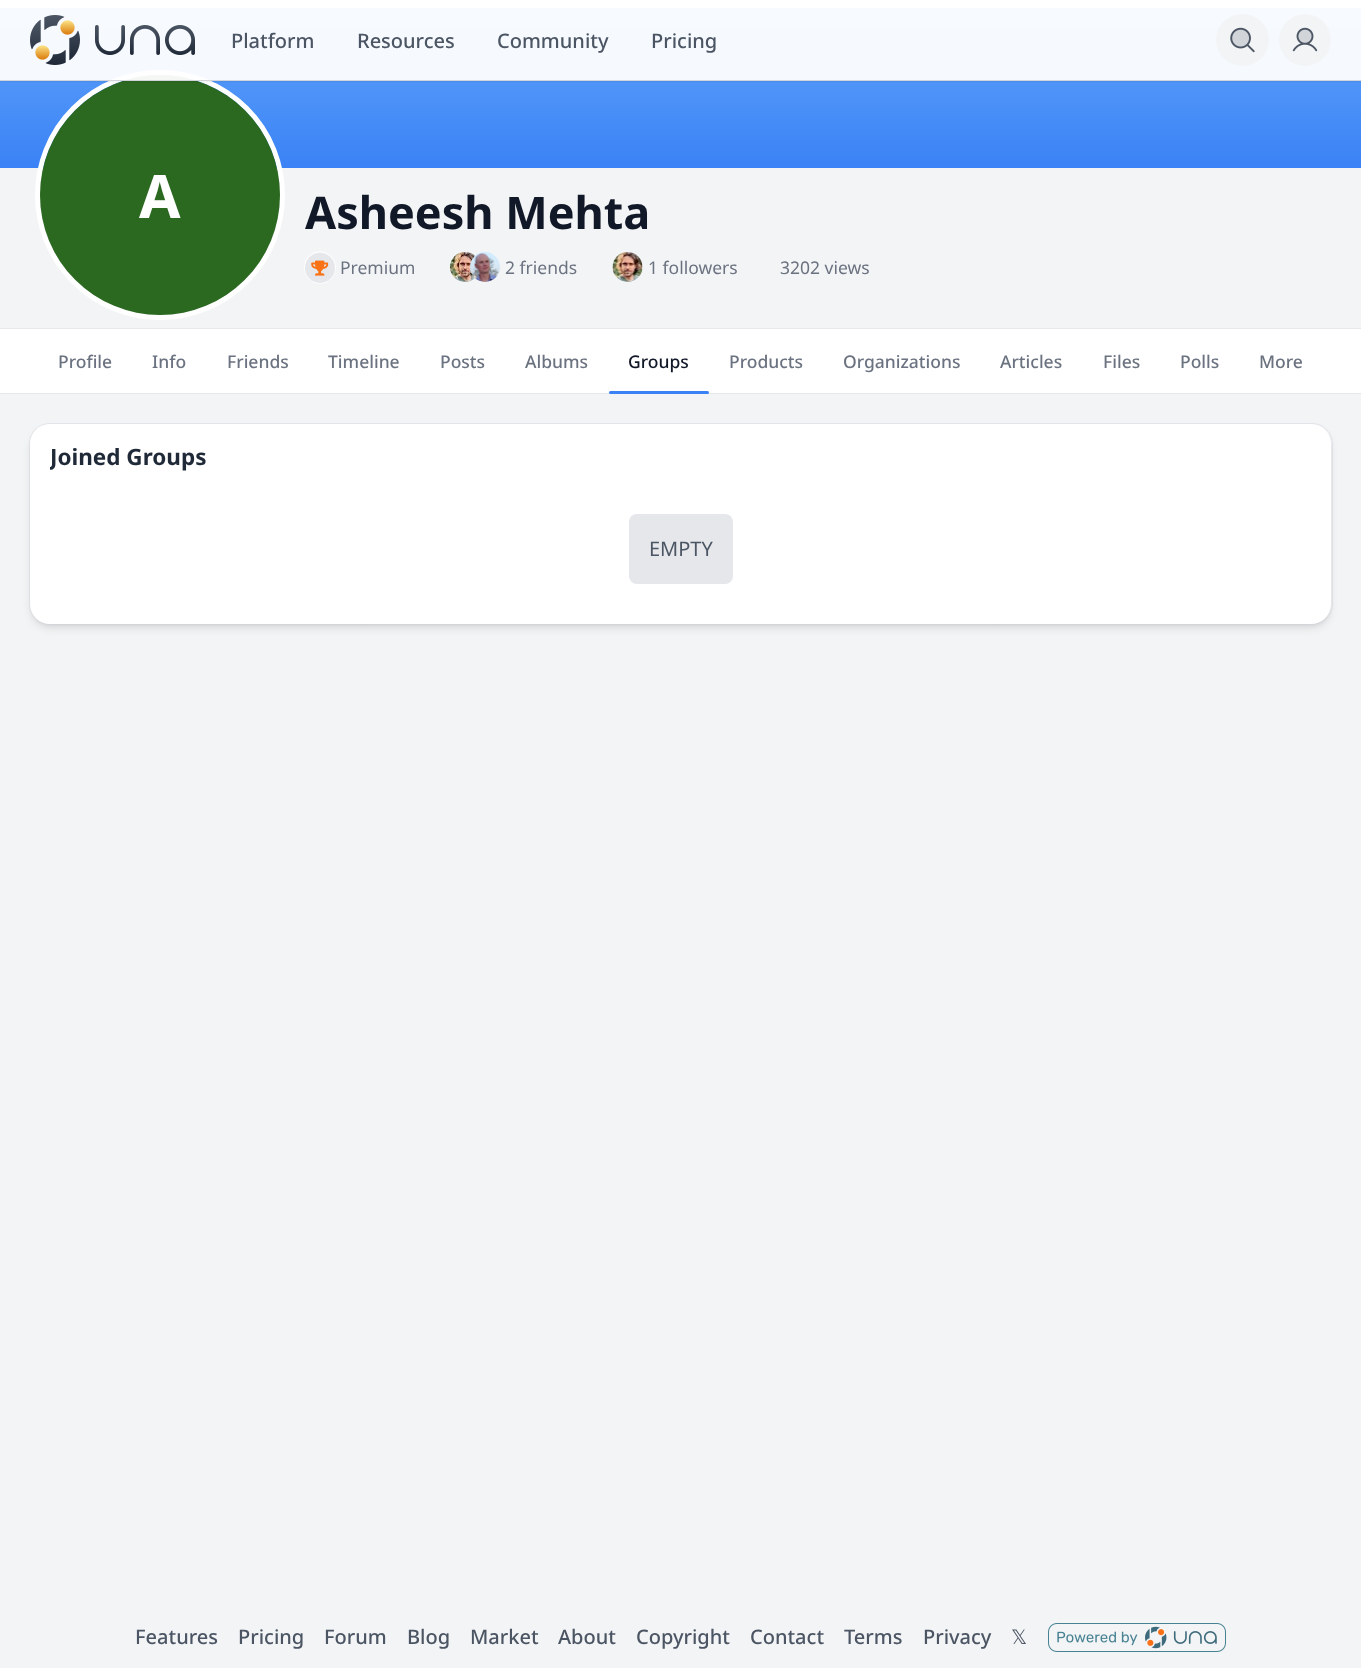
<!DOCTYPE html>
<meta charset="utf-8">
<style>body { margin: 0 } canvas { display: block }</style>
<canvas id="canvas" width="1361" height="1668"></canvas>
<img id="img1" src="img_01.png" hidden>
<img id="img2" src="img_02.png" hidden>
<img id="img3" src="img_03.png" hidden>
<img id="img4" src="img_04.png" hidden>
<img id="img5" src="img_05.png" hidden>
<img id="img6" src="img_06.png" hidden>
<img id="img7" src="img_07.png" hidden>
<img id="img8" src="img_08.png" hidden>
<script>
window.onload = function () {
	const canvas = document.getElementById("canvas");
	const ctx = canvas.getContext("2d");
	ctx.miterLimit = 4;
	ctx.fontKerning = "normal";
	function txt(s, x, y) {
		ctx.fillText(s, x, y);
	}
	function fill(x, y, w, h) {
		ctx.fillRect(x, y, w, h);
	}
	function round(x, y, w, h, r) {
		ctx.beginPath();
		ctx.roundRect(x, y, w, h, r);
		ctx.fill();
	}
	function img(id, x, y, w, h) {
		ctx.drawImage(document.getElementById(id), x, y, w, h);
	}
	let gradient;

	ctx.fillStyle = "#F3F4F6";
	fill(0, 0, 1361, 1668);
	gradient = ctx.createLinearGradient(681, 7.5, 681, 168);
	gradient.addColorStop(0, "#60A5FA");
	gradient.addColorStop(1, "#3B82F6");
	ctx.fillStyle = gradient;
	fill(0, 8, 1361, 160);
	ctx.beginPath();
	ctx.arc(160, 195, 122.5, 0, Math.PI * 2);
	ctx.strokeStyle = "#FFFFFF";
	ctx.lineWidth = 5;
	ctx.stroke();
	ctx.fillStyle = "#2B6820";
	ctx.beginPath();
	ctx.arc(160, 195, 120, 0, Math.PI * 2);
	ctx.fill();
	ctx.save();
	ctx.beginPath();
	ctx.rect(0, 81, 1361, 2);
	ctx.clip();
	ctx.fillStyle = "rgba(0, 0, 0, 0.1)";
	ctx.filter = "blur(2px)";
	ctx.beginPath();
	ctx.rect(0, 1, 1361, 80);
	ctx.fill();
	ctx.filter = "none";
	ctx.restore();
	ctx.strokeStyle = "#D1D5DB";
	ctx.lineWidth = 1;
	ctx.strokeRect(-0.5, -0.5, 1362, 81);
	ctx.fillStyle = "rgba(255, 255, 255, 0.95)";
	fill(0, 0, 1361, 80);
	img("img1", 30, 15, 165, 50);
	ctx.fillStyle = "#F3F4F6";
	round(1216, 14, 53, 52, 26);
	img("img2", 1230, 27, 25, 26);
	ctx.beginPath();
	ctx.arc(1305, 40, 26, 0, Math.PI * 2);
	ctx.fill();
	img("img3", 1292, 27, 26, 25);
	ctx.beginPath();
	ctx.roundRect(304.5, 251.5, 31, 32, 15.5);
	ctx.strokeStyle = "#FFFFFF";
	ctx.stroke();
	ctx.fillStyle = "#E5E7EB";
	ctx.beginPath();
	ctx.arc(320, 268, 15, 0, Math.PI * 2);
	ctx.fill();
	img("img4", 311, 260, 18, 16);
	img("img5", 450, 252, 25, 30);
	img("img6", 470, 252, 30, 30);
	img("img7", 612, 252, 31, 30);
	fill(0, 328, 1361, 1);
	ctx.fillStyle = "#FFFFFF";
	fill(0, 329, 1361, 64);
	ctx.fillStyle = "#E5E7EB";
	fill(0, 393, 1361, 1);
	ctx.fillStyle = "#3B82F6";
	round(609, 391, 100, 3, 1.5);
	ctx.fillStyle = "rgba(0, 0, 0, 0.1)";
	ctx.filter = "blur(2.5px)";
	ctx.beginPath();
	ctx.roundRect(33, 429, 1296, 195, 18);
	ctx.fill();
	ctx.filter = "none";
	ctx.filter = "blur(4px)";
	ctx.beginPath();
	ctx.roundRect(31, 430, 1299, 198, 19);
	ctx.fill();
	ctx.filter = "none";
	ctx.beginPath();
	ctx.roundRect(29.5, 423.5, 1303, 201, 20.5);
	ctx.strokeStyle = "rgba(209, 213, 219, 0.5)";
	ctx.stroke();
	ctx.fillStyle = "#FFFFFF";
	round(30, 424, 1301, 200, 20);
	ctx.fillStyle = "#E5E7EB";
	round(629, 514, 104, 70, 8);
	img("img8", 1048, 1623, 178, 29);
	ctx.font = "500 20px Noto Sans";
	ctx.fillStyle = "#4B5563";
	txt("Platform", 231, 48);
	txt("Resources", 357, 48);
	txt("Community", 497, 48);
	txt("Pricing", 651, 48);
	ctx.font = "bold 60px Noto Sans";
	ctx.fillStyle = "#FFFFFF";
	txt("A", 139, 218);
	ctx.font = "bold 45px Noto Sans";
	ctx.fillStyle = "#111827";
	txt("Asheesh Mehta", 305, 229);
	ctx.font = "17.5px Noto Sans";
	ctx.fillStyle = "#6B7280";
	txt("Premium", 340, 274);
	txt("2 friends", 505, 274);
	txt("1 followers", 648, 274);
	txt("3202 views", 780, 274);
	ctx.font = "500 17.5px Noto Sans";
	txt("Profile", 58, 368);
	txt("Info", 152, 368);
	txt("Friends", 227, 368);
	txt("Timeline", 328, 368);
	txt("Posts", 440, 368);
	txt("Albums", 525, 368);
	ctx.fillStyle = "#111827";
	txt("Groups", 628, 368);
	ctx.fillStyle = "#6B7280";
	txt("Products", 729, 368);
	txt("Organizations", 843, 368);
	txt("Articles", 1000, 368);
	txt("Files", 1103, 368);
	txt("Polls", 1180, 368);
	txt("More", 1259, 368);
	ctx.save();
	ctx.beginPath();
	ctx.rect(50, 439, 1261, 35);
	ctx.clip();
	ctx.font = "bold 22.5px Noto Sans";
	ctx.fillStyle = "#1F2937";
	txt("Joined Groups", 50, 465);
	ctx.restore();
	ctx.font = "20px Noto Sans";
	ctx.fillStyle = "#4B5563";
	txt("EMPTY", 649, 556);
	ctx.font = "500 20px Noto Sans";
	txt("Features", 135, 1644);
	txt("Pricing", 238, 1644);
	txt("Forum", 324, 1644);
	txt("Blog", 407, 1644);
	txt("Market", 470, 1644);
	txt("About", 558, 1644);
	txt("Copyright", 636, 1644);
	txt("Contact", 750, 1644);
	txt("Terms", 844, 1644);
	txt("Privacy", 923, 1644);
	ctx.font = "20px DejaVu Sans";
	txt("𝕏", 1011, 1644);
};
</script>
